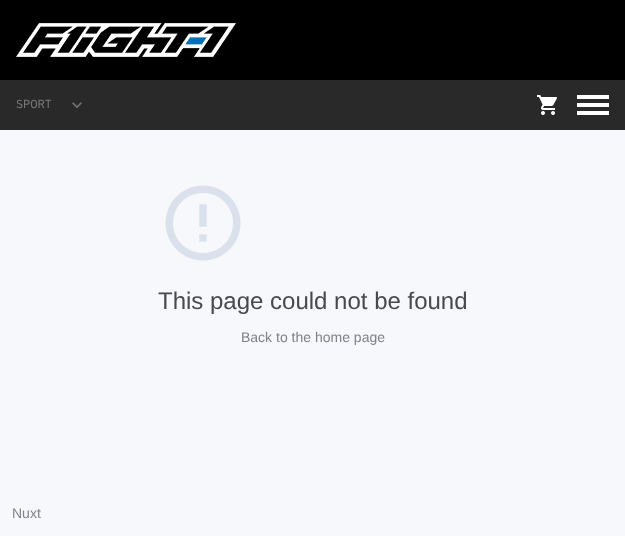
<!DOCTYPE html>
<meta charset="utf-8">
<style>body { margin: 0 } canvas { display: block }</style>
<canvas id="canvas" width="625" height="536"></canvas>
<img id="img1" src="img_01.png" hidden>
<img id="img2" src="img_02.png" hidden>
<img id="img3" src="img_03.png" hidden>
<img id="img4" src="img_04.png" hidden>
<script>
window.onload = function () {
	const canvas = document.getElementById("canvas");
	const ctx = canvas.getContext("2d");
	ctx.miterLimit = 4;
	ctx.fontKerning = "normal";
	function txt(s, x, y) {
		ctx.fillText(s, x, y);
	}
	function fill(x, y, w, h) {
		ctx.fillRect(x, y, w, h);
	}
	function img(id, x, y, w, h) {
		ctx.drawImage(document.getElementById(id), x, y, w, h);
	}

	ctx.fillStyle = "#F7F8FB";
	fill(0, 0, 625, 536);
	ctx.fillStyle = "#000000";
	fill(0, 0, 625, 80);
	img("img1", 16, 23, 220, 34);
	ctx.fillStyle = "#292929";
	fill(0, 80, 625, 50);
	img("img2", 72, 102, 10, 7);
	img("img3", 537, 95, 20, 20);
	ctx.fillStyle = "#FFFFFF";
	fill(577, 95, 32, 4);
	fill(577, 103, 32, 4);
	fill(577, 111, 32, 4);
	img("img4", 165, 185, 76, 76);
	ctx.font = "12px DIN Next";
	ctx.fillStyle = "#7A7A7A";
	txt("SPORT", 16, 108);
	ctx.font = "24px Liberation Sans";
	ctx.fillStyle = "#47494E";
	txt("This page could not be found", 158, 309);
	ctx.font = "14px Liberation Sans";
	ctx.fillStyle = "#7F828B";
	txt("Back to the home page", 241, 342);
	txt("Nuxt", 12, 518);
};
</script>
